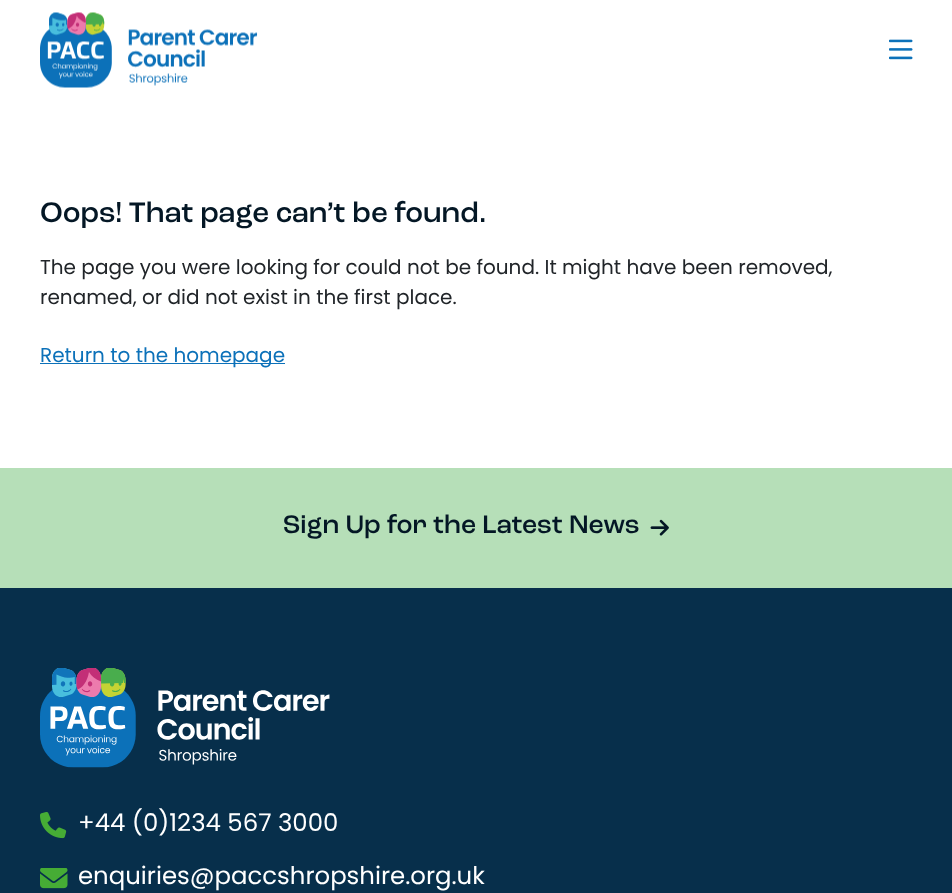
<!DOCTYPE html>
<meta charset="utf-8">
<style>body { margin: 0 } canvas { display: block }</style>
<canvas id="canvas" width="952" height="893"></canvas>
<img id="img1" src="img_01.png" hidden>
<img id="img2" src="img_02.png" hidden>
<img id="img3" src="img_03.png" hidden>
<img id="img4" src="img_04.png" hidden>
<img id="img5" src="img_05.png" hidden>
<img id="img6" src="img_06.png" hidden>
<script>
window.onload = function () {
	const canvas = document.getElementById("canvas");
	const ctx = canvas.getContext("2d");
	ctx.miterLimit = 4;
	ctx.fontKerning = "normal";
	function txt(s, x, y) {
		ctx.fillText(s, x, y);
	}
	function fill(x, y, w, h) {
		ctx.fillRect(x, y, w, h);
	}
	function img(id, x, y, w, h) {
		ctx.drawImage(document.getElementById(id), x, y, w, h);
	}

	ctx.fillStyle = "#FFFFFF";
	fill(0, 0, 952, 893);
	img("img1", 40, 12, 218, 76);
	img("img2", 889, 39, 24, 21);
	ctx.fillStyle = "#0C71B9";
	fill(40, 363, 245, 1);
	ctx.fillStyle = "#072F4B";
	fill(0, 588, 952, 305);
	ctx.fillStyle = "#B6DFB8";
	fill(0, 468, 952, 120);
	img("img3", 650, 519, 19, 17);
	img("img4", 40, 668, 290, 100);
	img("img5", 40, 812, 27, 27);
	img("img6", 40, 868, 28, 21);
	ctx.font = "500 29.75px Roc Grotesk";
	ctx.fillStyle = "#041725";
	txt("Oops! That page can’t be found.", 40, 222);
	ctx.font = "20px Poppins";
	ctx.fillStyle = "#212529";
	txt("The page you were looking for could not be found. It might have been removed,", 40, 274);
	txt("renamed, or did not exist in the first place.", 40, 304);
	ctx.fillStyle = "#0C71B9";
	txt("Return to the homepage", 40, 362);
	ctx.font = "500 26.75px Roc Grotesk";
	ctx.fillStyle = "#041725";
	txt("Sign Up for the Latest News", 283, 533);
	ctx.font = "24.4px Poppins";
	ctx.fillStyle = "#FFFFFF";
	txt("+44 (0)1234 567 3000", 78, 831);
	txt("enquiries@paccshropshire.org.uk", 78, 884);
};
</script>
